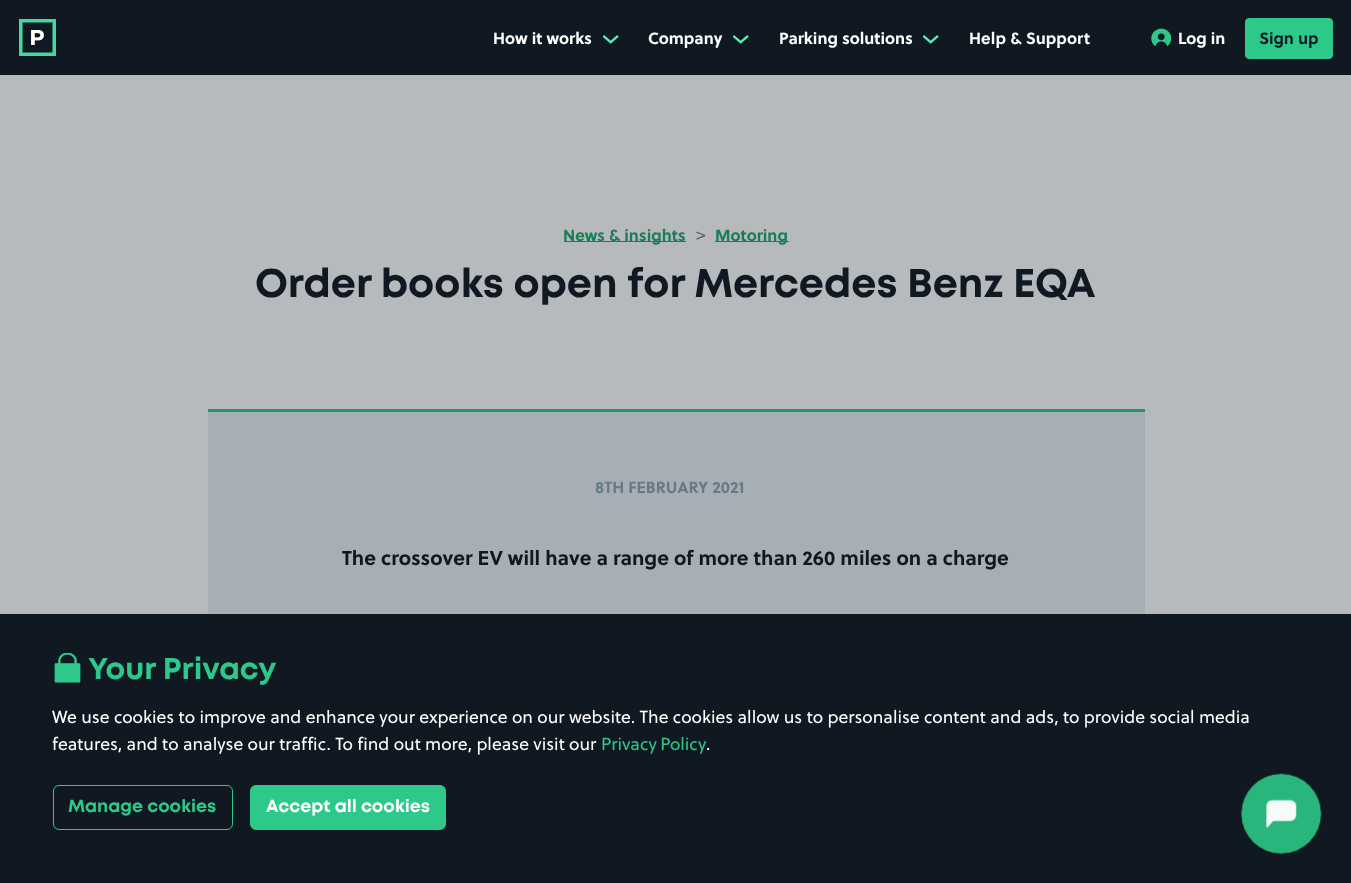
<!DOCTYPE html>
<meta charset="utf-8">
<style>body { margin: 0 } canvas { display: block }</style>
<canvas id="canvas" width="1351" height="883"></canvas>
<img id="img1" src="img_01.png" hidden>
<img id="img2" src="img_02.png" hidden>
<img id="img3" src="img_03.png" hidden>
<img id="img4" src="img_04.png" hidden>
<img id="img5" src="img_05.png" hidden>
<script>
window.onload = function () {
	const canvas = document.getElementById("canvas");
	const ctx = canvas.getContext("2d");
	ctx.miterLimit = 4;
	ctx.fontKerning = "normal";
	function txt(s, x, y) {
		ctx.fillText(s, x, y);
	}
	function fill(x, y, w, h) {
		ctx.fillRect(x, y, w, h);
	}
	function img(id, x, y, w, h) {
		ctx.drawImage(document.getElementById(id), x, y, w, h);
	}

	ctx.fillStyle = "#B7BABC";
	fill(0, 0, 1351, 883);
	ctx.fillStyle = "#101921";
	fill(0, 0, 1351, 75);
	img("img1", 19, 19, 37, 37);
	img("img2", 603, 35, 16, 9);
	img("img2", 733, 35, 16, 9);
	img("img2", 923, 35, 16, 9);
	img("img3", 1151, 28, 20, 19);
	ctx.fillStyle = "#2DC98A";
	ctx.beginPath();
	ctx.roundRect(1245.5, 18.5, 87, 40, 3.5);
	ctx.fill();
	ctx.strokeStyle = "#2DC98A";
	ctx.stroke();
	ctx.fillStyle = "#197E58";
	fill(564, 241, 122, 1);
	fill(715, 241, 74, 1);
	ctx.fillStyle = "#A7AFB4";
	fill(208, 412, 937, 202);
	ctx.fillStyle = "#24946B";
	fill(208, 409, 937, 3);
	ctx.fillStyle = "#101921";
	fill(0, 614, 1351, 269);
	img("img4", 54, 653, 27, 30);
	ctx.beginPath();
	ctx.roundRect(53.5, 785.5, 179, 44, 5.5);
	ctx.stroke();
	ctx.fillStyle = "#2DC98A";
	ctx.beginPath();
	ctx.roundRect(250.5, 785.5, 195, 44, 5.5);
	ctx.fill();
	ctx.stroke();
	img("img5", 1241, 773, 81, 81);
	ctx.font = "bold 16.25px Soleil";
	ctx.fillStyle = "#FFFFFF";
	txt("How it works", 493, 44);
	txt("Company", 648, 44);
	txt("Parking solutions", 779, 44);
	ctx.letterSpacing = "0.1px";
	txt("Help & Support", 969, 44);
	ctx.letterSpacing = "0px";
	txt("Log in", 1178, 44);
	ctx.fillStyle = "#101921";
	txt("Sign up", 1259, 44);
	ctx.fillStyle = "#197E58";
	txt("News & insights", 563, 241);
	ctx.font = "17.5px Soleil";
	ctx.fillStyle = "#505961";
	txt(">", 696, 241);
	ctx.font = "bold 16.25px Soleil";
	ctx.fillStyle = "#197E58";
	txt("Motoring", 715, 241);
	ctx.font = "bold 40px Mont";
	ctx.fillStyle = "#101921";
	txt("Order books open for Mercedes Benz EQA", 255, 297);
	ctx.font = "bold 16.25px Soleil";
	ctx.fillStyle = "#657A87";
	txt("8TH FEBRUARY 2021", 595, 493);
	ctx.font = "bold 20px Soleil";
	ctx.fillStyle = "#101921";
	txt("The crossover EV will have a range of more than 260 miles on a charge", 342, 565);
	ctx.font = "bold 30px Mont";
	ctx.fillStyle = "#2DC98A";
	txt("Your Privacy", 88, 679);
	ctx.font = "17.5px Soleil";
	ctx.fillStyle = "#FFFFFF";
	txt("We use cookies to improve and enhance your experience on our website. The cookies allow us to personalise content and ads, to provide social media", 52, 723);
	txt("features, and to analyse our traffic. To find out more, please visit our", 52, 750);
	ctx.wordSpacing = "-1px";
	ctx.fillStyle = "#2DC98A";
	txt("Privacy Policy", 601, 750);
	ctx.wordSpacing = "0px";
	ctx.fillStyle = "#FFFFFF";
	txt(".", 706, 750);
	ctx.font = "bold 17.5px Mont";
	ctx.fillStyle = "#2DC98A";
	txt("Manage cookies", 68, 812);
	ctx.fillStyle = "#FFFFFF";
	txt("Accept all cookies", 266, 812);
};
</script>
